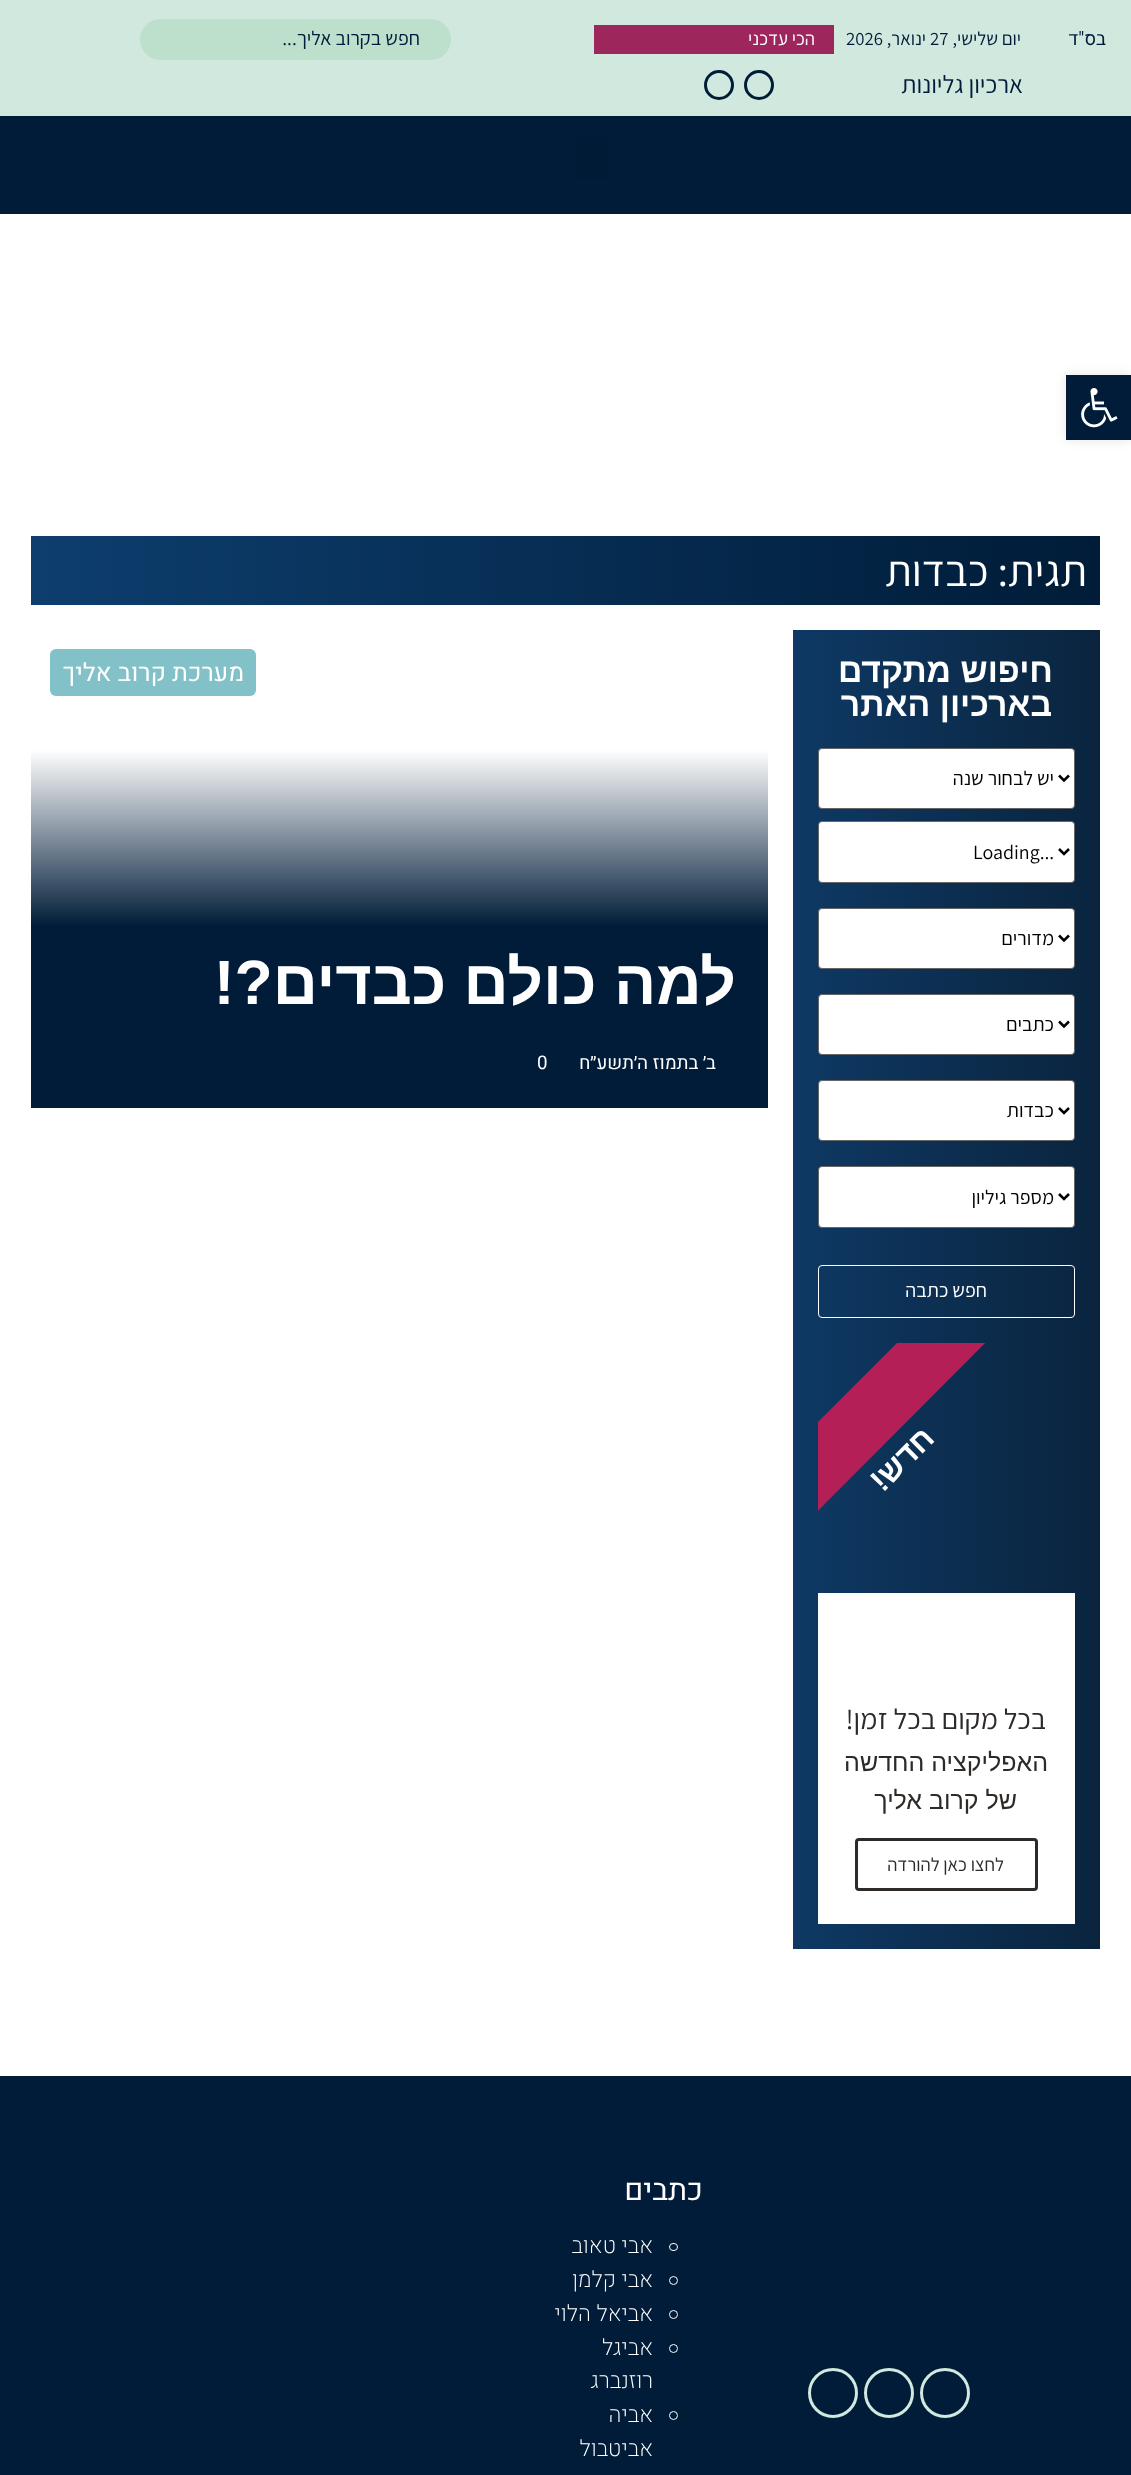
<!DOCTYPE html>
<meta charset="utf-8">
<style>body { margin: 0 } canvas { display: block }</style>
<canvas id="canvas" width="1131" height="2475"></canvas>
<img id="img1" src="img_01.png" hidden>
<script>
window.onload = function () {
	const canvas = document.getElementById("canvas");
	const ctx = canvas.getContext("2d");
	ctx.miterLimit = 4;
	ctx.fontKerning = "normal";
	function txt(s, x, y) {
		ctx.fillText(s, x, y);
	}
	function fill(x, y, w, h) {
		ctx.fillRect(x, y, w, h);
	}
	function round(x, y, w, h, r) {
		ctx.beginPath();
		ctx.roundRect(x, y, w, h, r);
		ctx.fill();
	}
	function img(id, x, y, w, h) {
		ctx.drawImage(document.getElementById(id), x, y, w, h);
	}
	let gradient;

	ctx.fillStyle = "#FFFFFF";
	fill(0, 0, 1131, 2475);
	ctx.fillStyle = "#D0E8DE";
	fill(0, 0, 1131, 116);
	ctx.fillStyle = "#9D265C";
	fill(594, 25, 240, 29);
	ctx.fillStyle = "#BCE0CC";
	round(140, 19, 311, 41, 20.5);
	ctx.beginPath();
	ctx.arc(759, 85, 13.5, 0, Math.PI * 2);
	ctx.strokeStyle = "#001C38";
	ctx.lineWidth = 3;
	ctx.stroke();
	ctx.beginPath();
	ctx.arc(719, 85, 13.5, 0, Math.PI * 2);
	ctx.stroke();
	ctx.fillStyle = "#001C38";
	fill(0, 116, 1131, 98);
	ctx.fillStyle = "#001B35";
	round(574, 138, 35, 41, 4);
	ctx.fillStyle = "rgba(0, 0, 0, 0.1)";
	ctx.filter = "blur(6px)";
	ctx.beginPath();
	ctx.rect(1066, 375, 65, 65);
	ctx.fill();
	ctx.filter = "none";
	ctx.fillStyle = "#001C38";
	fill(1066, 375, 65, 65);
	img("img1", 1081, 388, 37, 40);
	gradient = ctx.createLinearGradient(31, 571, 1100, 571);
	gradient.addColorStop(0, "#0D3E6E");
	gradient.addColorStop(1, "#001C38");
	ctx.fillStyle = gradient;
	fill(31, 536, 1069, 69);
	gradient = ctx.createLinearGradient(793, 1289, 1100, 1289);
	gradient.addColorStop(0, "#0E3964");
	gradient.addColorStop(1, "#0A243E");
	ctx.fillStyle = gradient;
	fill(793, 630, 307, 1319);
	ctx.fillStyle = "#FFFFFF";
	ctx.beginPath();
	ctx.roundRect(818.5, 748.5, 256, 60, 3.5);
	ctx.fill();
	ctx.strokeStyle = "#666666";
	ctx.lineWidth = 1;
	ctx.stroke();
	ctx.beginPath();
	ctx.moveTo(1059, 775.5);
	ctx.lineTo(1064, 780.5);
	ctx.lineTo(1069, 775.5);
	ctx.strokeStyle = "#000000";
	ctx.lineWidth = 2.5;
	ctx.stroke();
	ctx.beginPath();
	ctx.roundRect(818.5, 821.5, 256, 61, 3.5);
	ctx.fill();
	ctx.strokeStyle = "#666666";
	ctx.lineWidth = 1;
	ctx.stroke();
	ctx.beginPath();
	ctx.moveTo(1059, 849);
	ctx.lineTo(1064, 854);
	ctx.lineTo(1069, 849);
	ctx.strokeStyle = "#000000";
	ctx.lineWidth = 2.5;
	ctx.stroke();
	ctx.beginPath();
	ctx.roundRect(818.5, 908.5, 256, 60, 3.5);
	ctx.fill();
	ctx.strokeStyle = "#666666";
	ctx.lineWidth = 1;
	ctx.stroke();
	ctx.beginPath();
	ctx.moveTo(1059, 935.5);
	ctx.lineTo(1064, 940.5);
	ctx.lineTo(1069, 935.5);
	ctx.strokeStyle = "#000000";
	ctx.lineWidth = 2.5;
	ctx.stroke();
	ctx.beginPath();
	ctx.roundRect(818.5, 994.5, 256, 60, 3.5);
	ctx.fill();
	ctx.strokeStyle = "#666666";
	ctx.lineWidth = 1;
	ctx.stroke();
	ctx.beginPath();
	ctx.moveTo(1059, 1021.5);
	ctx.lineTo(1064, 1026.5);
	ctx.lineTo(1069, 1021.5);
	ctx.strokeStyle = "#000000";
	ctx.lineWidth = 2.5;
	ctx.stroke();
	ctx.beginPath();
	ctx.roundRect(818.5, 1080.5, 256, 60, 3.5);
	ctx.fill();
	ctx.strokeStyle = "#666666";
	ctx.lineWidth = 1;
	ctx.stroke();
	ctx.beginPath();
	ctx.moveTo(1059, 1108);
	ctx.lineTo(1064, 1113);
	ctx.lineTo(1069, 1108);
	ctx.strokeStyle = "#000000";
	ctx.lineWidth = 2.5;
	ctx.stroke();
	ctx.beginPath();
	ctx.roundRect(818.5, 1166.5, 256, 61, 3.5);
	ctx.fill();
	ctx.strokeStyle = "#666666";
	ctx.lineWidth = 1;
	ctx.stroke();
	ctx.beginPath();
	ctx.moveTo(1059, 1194);
	ctx.lineTo(1064, 1199);
	ctx.lineTo(1069, 1194);
	ctx.strokeStyle = "#000000";
	ctx.lineWidth = 2.5;
	ctx.stroke();
	ctx.beginPath();
	ctx.roundRect(818.5, 1265.5, 256, 52, 3.5);
	ctx.strokeStyle = "#FFFFFF";
	ctx.lineWidth = 1;
	ctx.stroke();
	ctx.save();
	ctx.beginPath();
	ctx.rect(818, 1343, 187, 187);
	ctx.clip();
	ctx.fillStyle = "#B51F57";
	ctx.beginPath();
	ctx.moveTo(725, 1515);
	ctx.lineTo(990, 1250);
	ctx.lineTo(1034, 1294);
	ctx.lineTo(769, 1560);
	ctx.closePath();
	ctx.fill();
	ctx.restore();
	fill(818, 1593, 257, 331);
	ctx.beginPath();
	ctx.roundRect(856.5, 1839.5, 180, 50, 2.5);
	ctx.strokeStyle = "#2D2A28";
	ctx.lineWidth = 3;
	ctx.stroke();
	ctx.fillStyle = "#83C1C9";
	round(50, 649, 206, 47, 6);
	gradient = ctx.createLinearGradient(399, 630, 399, 1108);
	gradient.addColorStop(0.25, "#FFFFFF");
	gradient.addColorStop(0.62, "#001C38");
	ctx.fillStyle = gradient;
	fill(31, 751, 737, 357);
	ctx.fillStyle = "#001C38";
	fill(0, 2076, 1131, 399);
	ctx.beginPath();
	ctx.arc(945, 2393, 23.5, 0, Math.PI * 2);
	ctx.strokeStyle = "#D0E8DE";
	ctx.stroke();
	ctx.beginPath();
	ctx.arc(889, 2393, 23.5, 0, Math.PI * 2);
	ctx.stroke();
	ctx.beginPath();
	ctx.arc(833, 2393, 23.5, 0, Math.PI * 2);
	ctx.stroke();
	ctx.beginPath();
	ctx.roundRect(669.5, 2243.5, 8, 7, 3.5);
	ctx.strokeStyle = "#FFFFFF";
	ctx.lineWidth = 1;
	ctx.stroke();
	ctx.beginPath();
	ctx.arc(673.5, 2280.5, 4, 0, Math.PI * 2);
	ctx.stroke();
	ctx.beginPath();
	ctx.arc(673.5, 2314.5, 4, 0, Math.PI * 2);
	ctx.stroke();
	ctx.beginPath();
	ctx.arc(673.5, 2348.5, 4, 0, Math.PI * 2);
	ctx.stroke();
	ctx.beginPath();
	ctx.arc(673.5, 2415.5, 4, 0, Math.PI * 2);
	ctx.stroke();
	ctx.direction = "rtl";
	ctx.font = "18.75px Heebo";
	txt("בס\"ד", 1106, 45);
	ctx.font = "18.75px Assistant";
	txt("יום שלישי,", 1021, 45);
	ctx.direction = "ltr";
	txt("27", 930, 45);
	ctx.direction = "rtl";
	txt("ינואר,", 926, 45);
	ctx.direction = "ltr";
	txt("2026", 846, 45);
	ctx.direction = "rtl";
	ctx.fillStyle = "#FFFFFF";
	txt("הכי עדכני", 815, 45);
	ctx.font = "20px Assistant";
	ctx.fillStyle = "#001C38";
	txt("חפש בקרוב אליך...", 420, 45);
	ctx.font = "25px Assistant";
	txt("ארכיון גליונות", 1023, 93);
	ctx.font = "43.75px Assistant";
	ctx.fillStyle = "#FFFFFF";
	txt("תגית: כבדות", 1087, 586);
	ctx.font = "bold 33.75px Liberation Sans";
	txt("חיפוש מתקדם", 1053, 682);
	txt("בארכיון האתר", 1052, 716);
	ctx.font = "20px Assistant";
	ctx.fillStyle = "#000000";
	txt("יש לבחור שנה", 1054, 785);
	ctx.direction = "ltr";
	txt("Loading...", 973, 859);
	ctx.direction = "rtl";
	txt("מדורים", 1054, 945);
	txt("כתבים", 1054, 1031);
	txt("כבדות", 1054, 1117);
	txt("מספר גיליון", 1054, 1204);
	ctx.fillStyle = "#FFFFFF";
	txt("חפש כתבה", 987, 1297);
	ctx.font = "bold 31px Liberation Sans";
	ctx.save();
	ctx.translate(936, 1440);
	ctx.rotate(-45 * Math.PI / 180);
	ctx.fillText("חדש!", 0, 0);
	ctx.restore();
	ctx.font = "28.75px Assistant";
	ctx.fillStyle = "#2D2A28";
	txt("בכל מקום בכל זמן!", 1046, 1729);
	ctx.font = "25px Liberation Sans";
	txt("האפליקציה החדשה", 1048, 1771);
	txt("של קרוב אליך", 1017, 1809);
	ctx.font = "18.75px Assistant";
	txt("לחצו כאן להורדה", 1004, 1871);
	ctx.font = "25px Heebo";
	ctx.fillStyle = "#FFFFFF";
	txt("מערכת קרוב אליך", 244, 681);
	ctx.font = "bold 62.5px Liberation Sans";
	txt("למה כולם כבדים?!", 736, 1004);
	ctx.font = "18.75px Heebo";
	txt("ב׳ בתמוז ה׳תשע״ח", 716, 1069);
	ctx.direction = "ltr";
	txt("0", 537, 1069);
	ctx.direction = "rtl";
	ctx.font = "30px Heebo";
	txt("כתבים", 703, 2200);
	ctx.font = "200 22.5px Heebo";
	txt("אבי טאוב", 653, 2253);
	txt("אבי קלמן", 653, 2287);
	txt("אביאל הלוי", 653, 2321);
	txt("אביגל", 653, 2355);
	txt("רוזנברג", 653, 2388);
	txt("אביה", 653, 2422);
	txt("אביטבול", 653, 2456);
};
</script>
